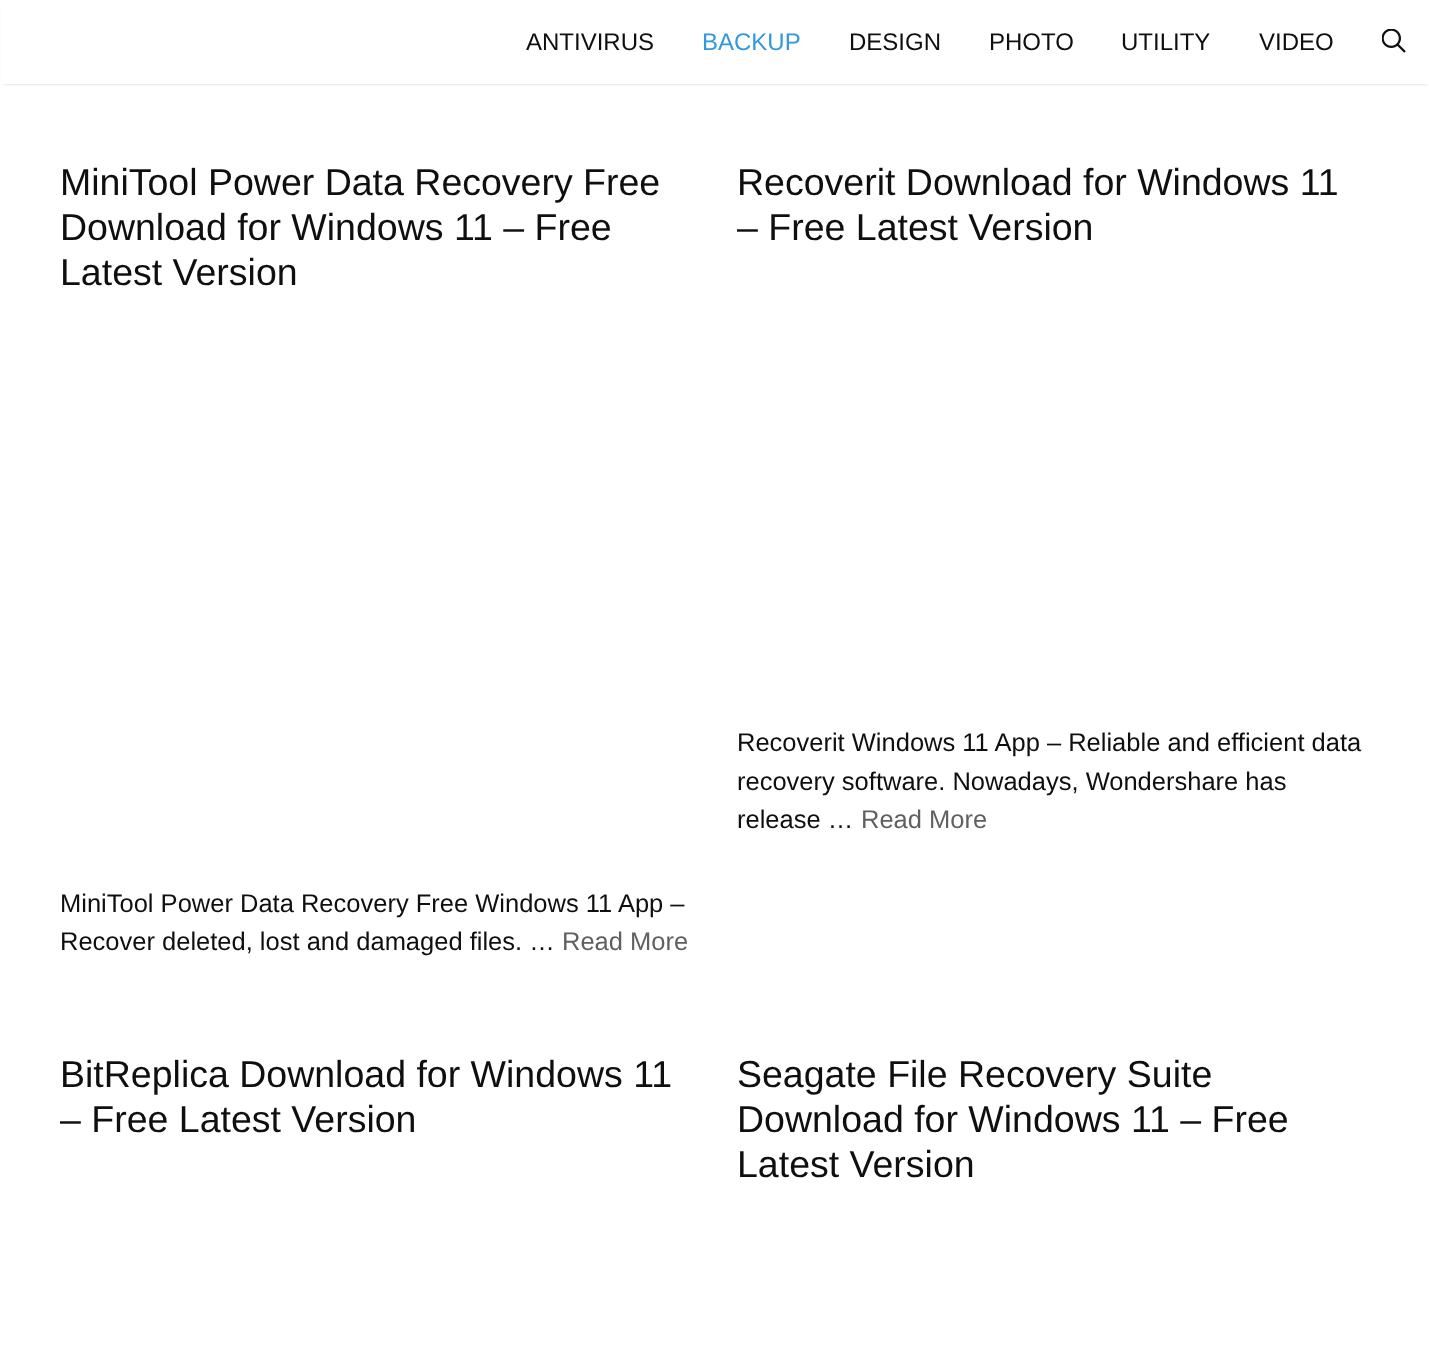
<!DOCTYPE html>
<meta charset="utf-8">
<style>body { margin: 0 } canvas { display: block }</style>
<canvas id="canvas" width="1429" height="1346"></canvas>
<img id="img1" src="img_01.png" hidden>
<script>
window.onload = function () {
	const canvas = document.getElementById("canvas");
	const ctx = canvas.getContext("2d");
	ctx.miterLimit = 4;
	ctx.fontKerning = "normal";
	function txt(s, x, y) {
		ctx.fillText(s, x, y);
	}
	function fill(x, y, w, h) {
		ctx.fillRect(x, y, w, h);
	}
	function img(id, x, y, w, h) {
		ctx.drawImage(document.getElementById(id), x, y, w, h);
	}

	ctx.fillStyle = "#FFFFFF";
	fill(0, 0, 1429, 1346);
	ctx.fillStyle = "rgba(0, 0, 0, 0.2)";
	ctx.filter = "blur(1.5px)";
	ctx.beginPath();
	ctx.rect(3, 6, 1424, 78);
	ctx.fill();
	ctx.filter = "none";
	ctx.fillStyle = "#FFFFFF";
	fill(1, 4, 1428, 80);
	img("img1", 1382, 29, 24, 24);
	ctx.font = "24px Liberation Sans";
	ctx.fillStyle = "#0F0F0F";
	txt("ANTIVIRUS", 526, 50);
	ctx.fillStyle = "#3498DB";
	txt("BACKUP", 702, 50);
	ctx.fillStyle = "#0F0F0F";
	txt("DESIGN", 849, 50);
	txt("PHOTO", 989, 50);
	txt("UTILITY", 1121, 50);
	txt("VIDEO", 1259, 50);
	ctx.font = "37.5px Liberation Sans";
	txt("MiniTool Power Data Recovery Free", 60, 195);
	txt("Download for Windows 11 – Free", 60, 240);
	txt("Latest Version", 60, 285);
	ctx.font = "25.5px Liberation Sans";
	txt("MiniTool Power Data Recovery Free Windows 11 App –", 60, 912);
	txt("Recover deleted, lost and damaged files. …", 60, 950);
	ctx.fillStyle = "#606060";
	txt("Read More", 562, 950);
	ctx.font = "37.5px Liberation Sans";
	ctx.fillStyle = "#0F0F0F";
	txt("Recoverit Download for Windows 11", 737, 195);
	txt("– Free Latest Version", 737, 240);
	ctx.font = "25.5px Liberation Sans";
	txt("Recoverit Windows 11 App – Reliable and efficient data", 737, 751);
	txt("recovery software. Nowadays, Wondershare has", 737, 790);
	txt("release …", 737, 828);
	ctx.fillStyle = "#606060";
	txt("Read More", 861, 828);
	ctx.font = "37.5px Liberation Sans";
	ctx.fillStyle = "#0F0F0F";
	txt("BitReplica Download for Windows 11", 60, 1087);
	txt("– Free Latest Version", 60, 1132);
	txt("Seagate File Recovery Suite", 737, 1087);
	txt("Download for Windows 11 – Free", 737, 1132);
	txt("Latest Version", 737, 1177);
};
</script>
